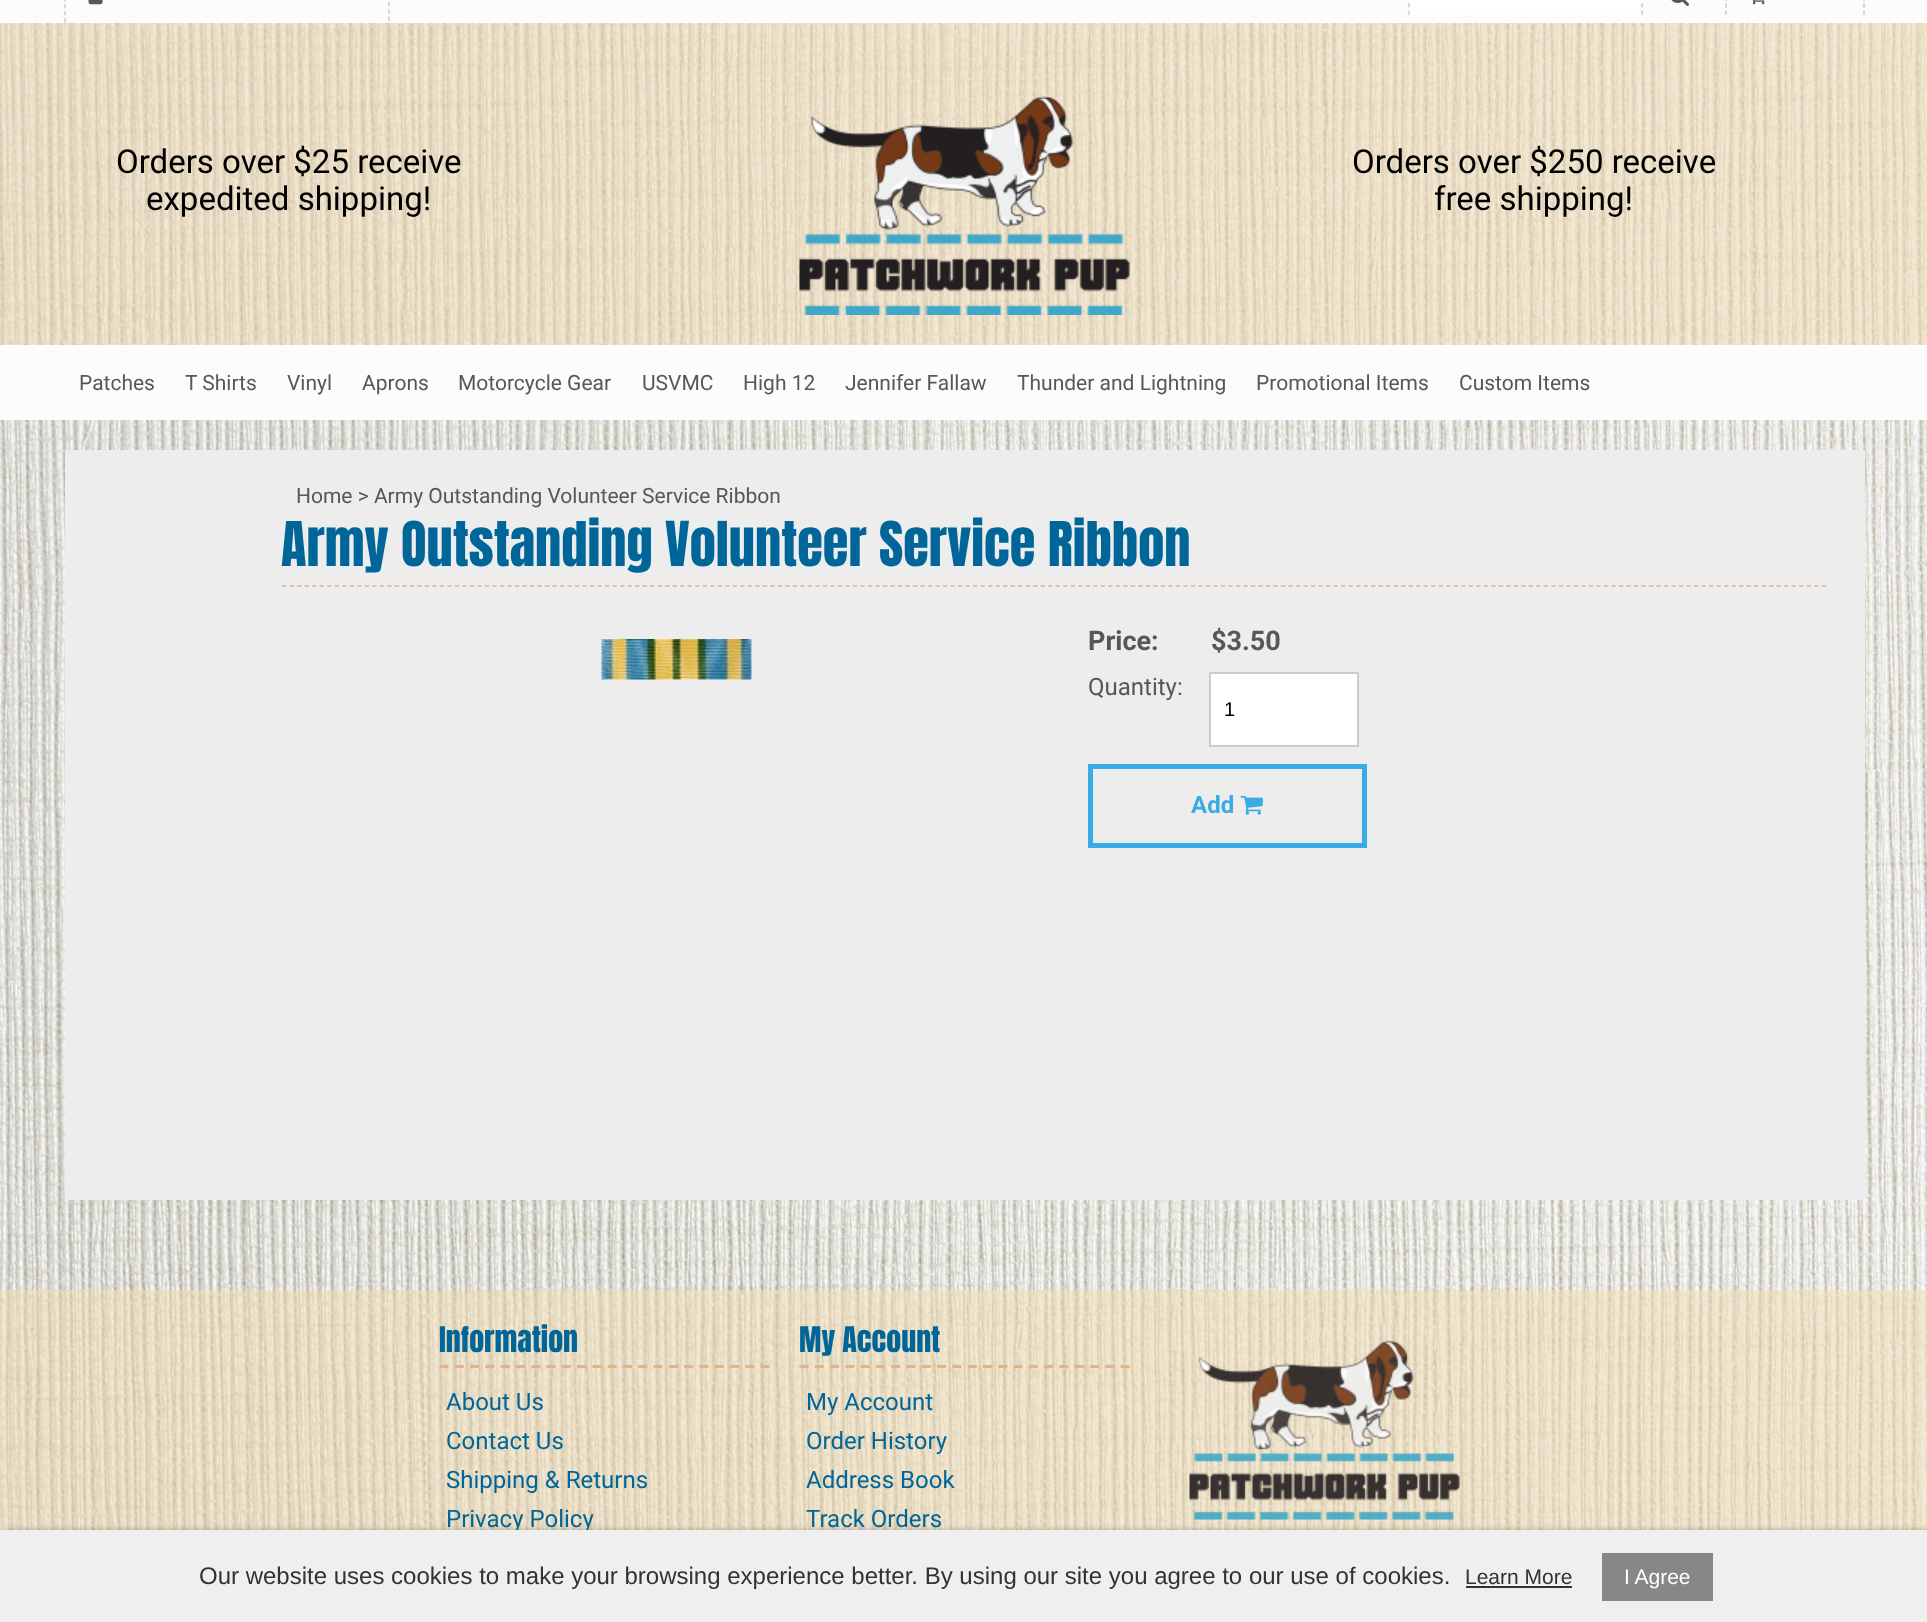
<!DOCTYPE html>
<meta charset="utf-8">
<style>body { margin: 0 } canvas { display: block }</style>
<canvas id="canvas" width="1927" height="1622"></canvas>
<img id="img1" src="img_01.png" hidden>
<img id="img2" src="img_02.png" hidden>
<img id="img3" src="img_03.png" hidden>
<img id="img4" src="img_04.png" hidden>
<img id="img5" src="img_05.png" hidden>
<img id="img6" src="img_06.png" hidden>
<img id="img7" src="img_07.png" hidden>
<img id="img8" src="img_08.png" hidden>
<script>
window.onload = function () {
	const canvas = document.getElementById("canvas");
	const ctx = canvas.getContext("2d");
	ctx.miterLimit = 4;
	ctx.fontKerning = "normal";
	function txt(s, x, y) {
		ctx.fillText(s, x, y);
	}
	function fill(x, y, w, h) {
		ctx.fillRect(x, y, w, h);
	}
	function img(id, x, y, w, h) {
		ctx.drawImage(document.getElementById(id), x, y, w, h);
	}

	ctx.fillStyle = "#FFFFFF";
	fill(0, 0, 1927, 1622);
	img("img1", 0, 23, 1927, 1507);
	ctx.fillStyle = "#FCFCFC";
	fill(0, 0, 1927, 23);
	ctx.beginPath();
	ctx.moveTo(65, -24);
	ctx.lineTo(65, 22.5);
	ctx.strokeStyle = "#CCCCCC";
	ctx.lineWidth = 1.5;
	ctx.setLineDash([4.5, 2.5]);
	ctx.stroke();
	img("img2", 88, 0, 15, 5);
	ctx.beginPath();
	ctx.moveTo(389, -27);
	ctx.lineTo(389, 21);
	ctx.setLineDash([4.5, 2.75]);
	ctx.stroke();
	ctx.fillStyle = "#FFFFFF";
	fill(1409, 0, 234, 15);
	ctx.beginPath();
	ctx.moveTo(1642, -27);
	ctx.lineTo(1642, 15);
	ctx.setLineDash([4.5, 3]);
	ctx.stroke();
	ctx.beginPath();
	ctx.moveTo(1409, -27);
	ctx.lineTo(1409, 15);
	ctx.stroke();
	img("img3", 1671, 0, 18, 6);
	ctx.beginPath();
	ctx.moveTo(1864, -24);
	ctx.lineTo(1864, 15);
	ctx.setLineDash([4.5, 2.4]);
	ctx.stroke();
	ctx.beginPath();
	ctx.moveTo(1726, -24);
	ctx.lineTo(1726, 15);
	ctx.stroke();
	img("img4", 1752, 0, 13, 5);
	ctx.fillStyle = "rgba(244, 219, 178, 0.5)";
	fill(0, 23, 1927, 322);
	img("img5", 799, 96, 331, 219);
	ctx.fillStyle = "#FCFCFC";
	fill(0, 345, 1927, 75);
	ctx.fillStyle = "#EDEDED";
	fill(65, 450, 1800, 750);
	ctx.beginPath();
	ctx.moveTo(282, 586);
	ctx.lineTo(1827, 586);
	ctx.strokeStyle = "#E0B487";
	ctx.setLineDash([4.5, 3.01]);
	ctx.stroke();
	img("img6", 601, 639, 151, 41);
	ctx.fillStyle = "#FFFFFF";
	ctx.beginPath();
	ctx.rect(1210, 673, 148, 73);
	ctx.fill();
	ctx.strokeStyle = "#CCCCCC";
	ctx.lineWidth = 2;
	ctx.setLineDash([]);
	ctx.stroke();
	ctx.strokeStyle = "#39ACE6";
	ctx.lineWidth = 5;
	ctx.strokeRect(1090.5, 766.5, 274, 79);
	img("img7", 1240, 795, 23, 20);
	ctx.fillStyle = "rgba(244, 219, 178, 0.5)";
	fill(0, 1290, 1927, 240);
	ctx.beginPath();
	ctx.moveTo(439.5, 1366.5);
	ctx.lineTo(769.5, 1366.5);
	ctx.strokeStyle = "#E0B487";
	ctx.lineWidth = 3;
	ctx.setLineDash([9, 6.29]);
	ctx.stroke();
	ctx.beginPath();
	ctx.moveTo(799.5, 1366.5);
	ctx.lineTo(1129.5, 1366.5);
	ctx.stroke();
	img("img8", 1189, 1340, 271, 180);
	ctx.fillStyle = "rgba(0, 0, 0, 0.6)";
	ctx.filter = "blur(4px)";
	ctx.beginPath();
	ctx.rect(5, 1533, 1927, 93);
	ctx.fill();
	ctx.filter = "none";
	ctx.font = "33px Roboto";
	ctx.fillStyle = "#000000";
	txt("Orders over $25 receive", 116, 173);
	txt("expedited shipping!", 146, 210);
	txt("Orders over $250 receive", 1352, 173);
	txt("free shipping!", 1434, 210);
	ctx.font = "21px Roboto";
	ctx.fillStyle = "#575757";
	txt("Patches", 79, 390);
	txt("T Shirts", 185, 390);
	txt("Vinyl", 287, 390);
	txt("Aprons", 362, 390);
	txt("Motorcycle Gear", 458, 390);
	txt("USVMC", 642, 390);
	txt("High 12", 743, 390);
	txt("Jennifer Fallaw", 845, 390);
	txt("Thunder and Lightning", 1017, 390);
	txt("Promotional Items", 1256, 390);
	txt("Custom Items", 1459, 390);
	txt("Home > Army Outstanding Volunteer Service Ribbon", 296, 503);
	ctx.font = "52.5px Anton";
	ctx.fillStyle = "#006699";
	txt("Army Outstanding Volunteer Service Ribbon", 281, 566);
	ctx.font = "bold 27px Roboto";
	ctx.fillStyle = "#575757";
	txt("Price:", 1088, 650);
	txt("$3.50", 1211, 650);
	ctx.font = "24px Roboto";
	txt("Quantity:", 1088, 695);
	ctx.font = "20px Liberation Sans";
	ctx.fillStyle = "#000000";
	txt("1", 1224, 716);
	ctx.font = "bold 24px Roboto";
	ctx.fillStyle = "#39ACE6";
	txt("Add", 1191, 813);
	ctx.font = "30px Anton";
	ctx.fillStyle = "#006699";
	txt("Information", 439, 1352);
	ctx.font = "24px Roboto";
	txt("About Us", 446, 1410);
	txt("Contact Us", 446, 1449);
	txt("Shipping & Returns", 446, 1488);
	txt("Privacy Policy", 446, 1527);
	ctx.font = "30px Anton";
	txt("My Account", 799, 1352);
	ctx.font = "24px Roboto";
	txt("My Account", 806, 1410);
	txt("Order History", 806, 1449);
	txt("Address Book", 806, 1488);
	txt("Track Orders", 806, 1527);
	ctx.fillStyle = "#EFEFEF";
	fill(0, 1530, 1927, 92);
	ctx.font = "24px Liberation Sans";
	ctx.fillStyle = "#323232";
	txt("Our website uses cookies to make your browsing experience better. By using our site you agree to our use of cookies.", 199, 1584);
	ctx.font = "21px Liberation Sans";
	txt("Learn More", 1465, 1584);
	fill(1466, 1586, 106, 2);
	ctx.fillStyle = "#878787";
	fill(1602, 1553, 111, 48);
	ctx.fillStyle = "#FFFFFF";
	txt("I Agree", 1624, 1584);
};
</script>
